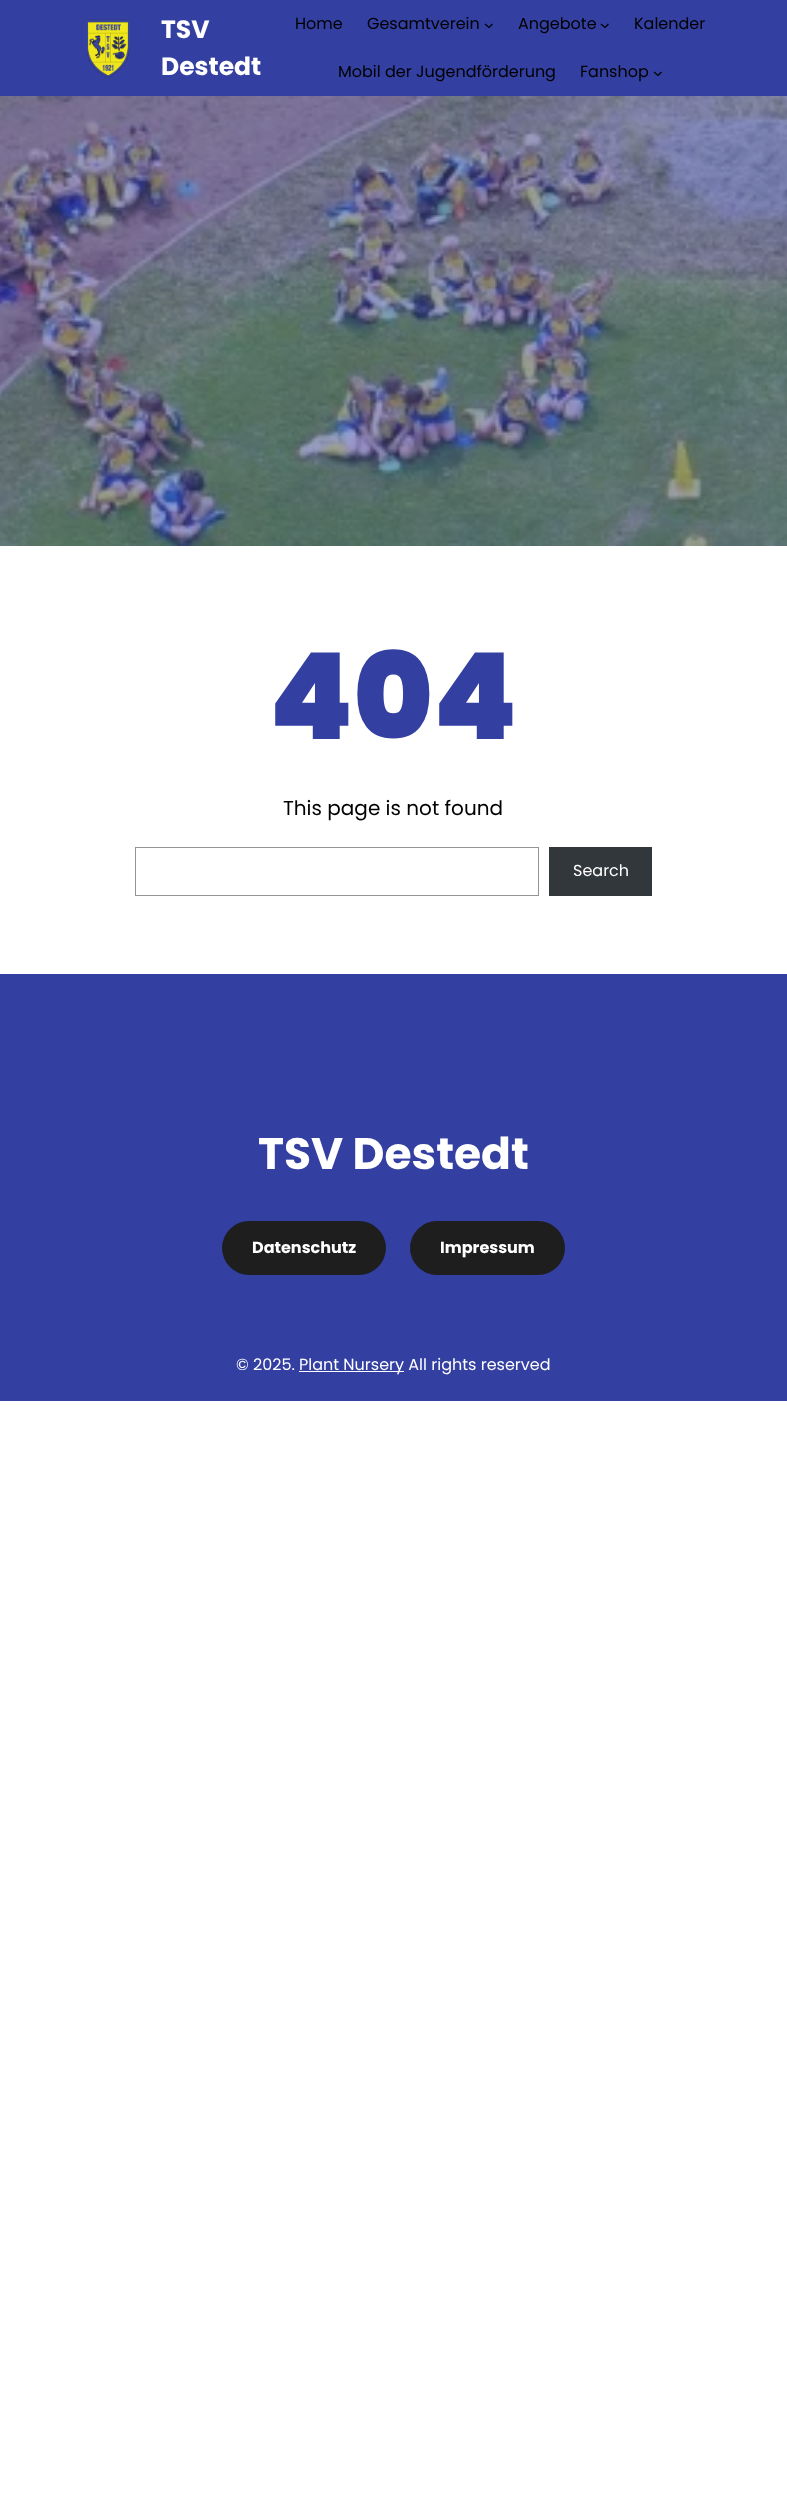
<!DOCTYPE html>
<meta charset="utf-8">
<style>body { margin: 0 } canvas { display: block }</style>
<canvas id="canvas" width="787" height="2517"></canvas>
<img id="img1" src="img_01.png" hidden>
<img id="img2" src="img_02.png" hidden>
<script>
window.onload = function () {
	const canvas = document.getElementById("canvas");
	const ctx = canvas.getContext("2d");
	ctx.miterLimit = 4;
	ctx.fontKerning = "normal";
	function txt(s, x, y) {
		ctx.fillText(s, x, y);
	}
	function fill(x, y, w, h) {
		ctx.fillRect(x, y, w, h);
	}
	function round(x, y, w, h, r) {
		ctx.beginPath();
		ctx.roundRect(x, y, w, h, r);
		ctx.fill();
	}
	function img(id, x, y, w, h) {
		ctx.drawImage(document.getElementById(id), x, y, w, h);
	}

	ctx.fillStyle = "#FFFFFF";
	fill(0, 0, 787, 2517);
	ctx.fillStyle = "#333FA1";
	fill(0, 0, 787, 96);
	img("img1", 86, 19, 44, 59);
	ctx.beginPath();
	ctx.moveTo(485, 24);
	ctx.lineTo(489, 27.5);
	ctx.lineTo(492.5, 24);
	ctx.strokeStyle = "#000000";
	ctx.lineWidth = 1.2;
	ctx.stroke();
	ctx.beginPath();
	ctx.moveTo(601, 24);
	ctx.lineTo(605, 27.5);
	ctx.lineTo(608.5, 24);
	ctx.moveTo(654, 72);
	ctx.lineTo(658, 75.5);
	ctx.lineTo(661.5, 72);
	ctx.stroke();
	img("img2", 0, 96, 787, 450);
	ctx.strokeStyle = "#949494";
	ctx.lineWidth = 1;
	ctx.strokeRect(135.5, 847.5, 403, 48);
	ctx.fillStyle = "#32373C";
	fill(549, 847, 103, 49);
	ctx.fillStyle = "#333FA1";
	fill(0, 974, 787, 427);
	ctx.fillStyle = "#1E1E1E";
	round(222, 1221, 164, 54, 27);
	round(410, 1221, 155, 54, 27);
	ctx.fillStyle = "#FFFFFF";
	fill(299, 1371, 105, 1);
	ctx.font = "bold 25px Poppins";
	txt("TSV", 161, 38);
	txt("Destedt", 161, 75);
	ctx.font = "16px Poppins";
	ctx.fillStyle = "#000000";
	txt("Home", 295, 29);
	txt("Gesamtverein", 367, 29);
	txt("Angebote", 518, 29);
	txt("Kalender", 634, 29);
	txt("Mobil der Jugendförderung", 338, 77);
	txt("Fanshop", 580, 77);
	ctx.font = "900 120px Poppins";
	ctx.fillStyle = "#333FA1";
	txt("404", 269, 739);
	ctx.font = "20px Poppins";
	ctx.fillStyle = "#000000";
	txt("This page is not found", 283, 815);
	ctx.font = "16px Poppins";
	ctx.fillStyle = "#FFFFFF";
	txt("Search", 573, 876);
	ctx.font = "bold 44px Poppins";
	txt("TSV Destedt", 258, 1169);
	ctx.font = "bold 16px Poppins";
	txt("Datenschutz", 252, 1253);
	txt("Impressum", 440, 1253);
	ctx.font = "16px Poppins";
	txt("© 2025.", 236, 1370);
	txt("Plant Nursery All rights reserved", 299, 1370);
};
</script>
